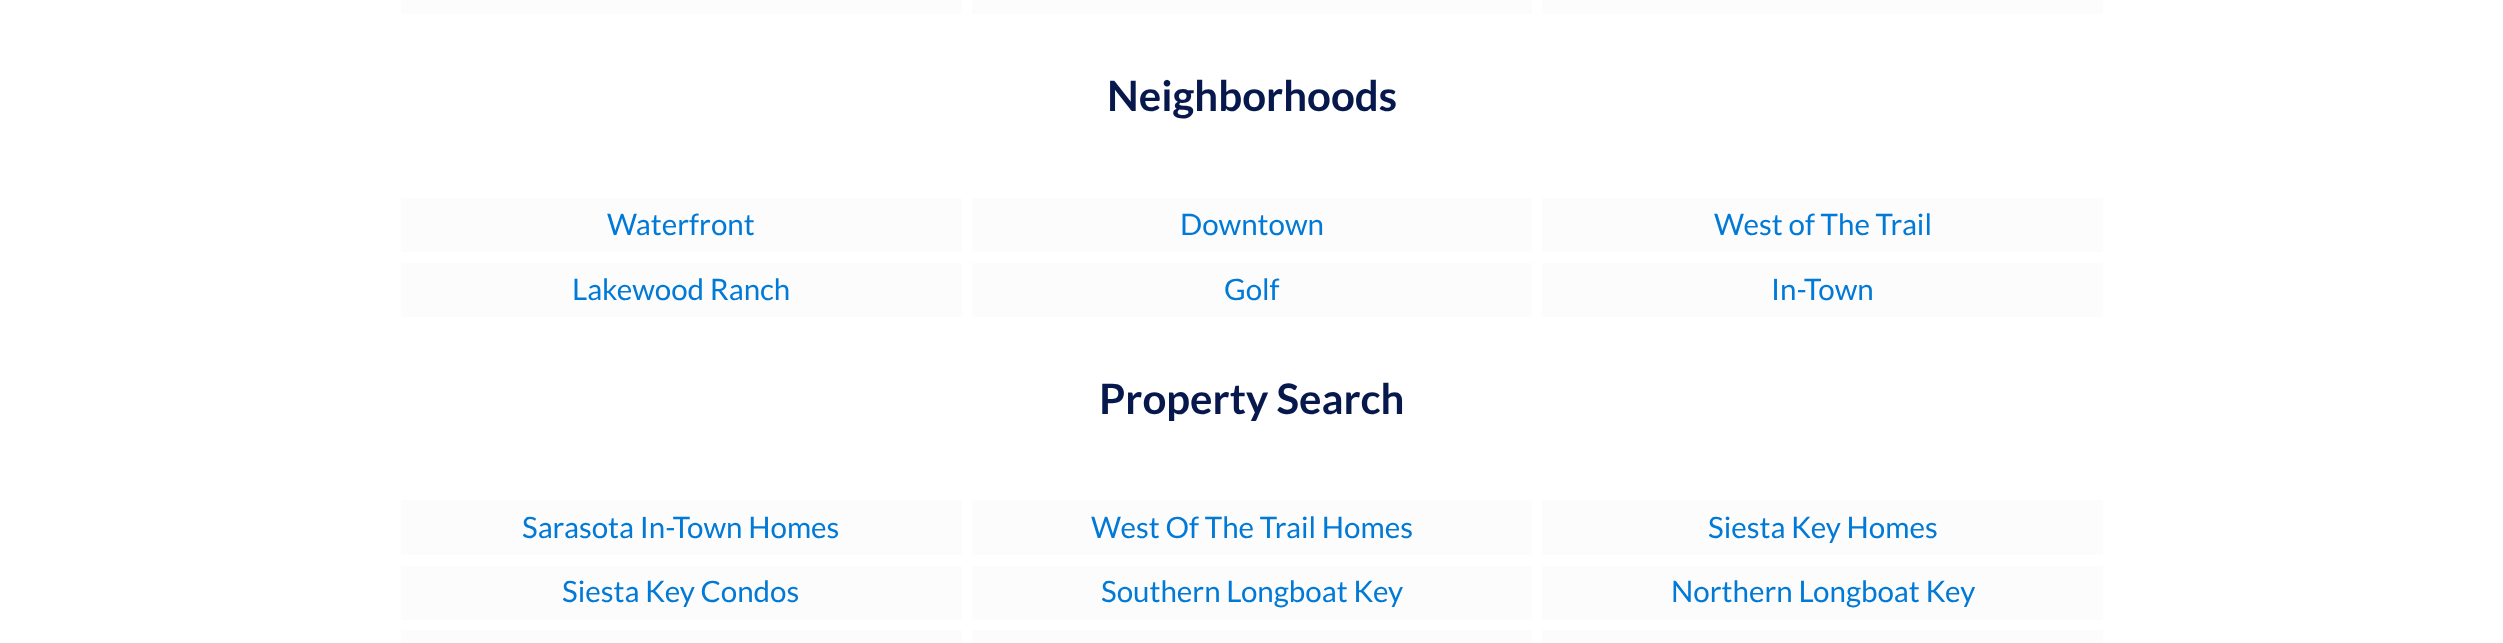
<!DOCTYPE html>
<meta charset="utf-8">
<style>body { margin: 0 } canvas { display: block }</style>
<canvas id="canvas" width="2503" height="643"></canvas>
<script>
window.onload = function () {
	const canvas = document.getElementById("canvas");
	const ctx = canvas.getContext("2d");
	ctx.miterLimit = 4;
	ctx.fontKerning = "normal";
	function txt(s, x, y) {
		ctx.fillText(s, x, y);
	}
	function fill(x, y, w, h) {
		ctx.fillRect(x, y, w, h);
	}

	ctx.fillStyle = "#FFFFFF";
	fill(0, 0, 2503, 643);
	ctx.fillStyle = "#FCFCFC";
	fill(401, 0, 561, 14);
	fill(972, 0, 560, 14);
	fill(1542, 0, 561, 14);
	fill(401, 198, 561, 54);
	fill(972, 198, 560, 54);
	fill(1542, 198, 561, 54);
	fill(401, 263, 561, 54);
	fill(972, 263, 560, 54);
	fill(1542, 263, 561, 54);
	fill(401, 500, 561, 55);
	fill(972, 500, 560, 55);
	fill(1542, 500, 561, 55);
	fill(401, 566, 561, 54);
	fill(972, 566, 560, 54);
	fill(1542, 566, 561, 54);
	fill(401, 630, 561, 13);
	fill(972, 630, 560, 13);
	fill(1542, 630, 561, 13);
	ctx.font = "bold 42px Lato";
	ctx.fillStyle = "#07184D";
	txt("Neighborhoods", 1107, 111);
	ctx.font = "29.5px Lato";
	ctx.fillStyle = "#0179D6";
	txt("Waterfront", 607, 235);
	txt("Downtown", 1180, 235);
	txt("West of The Trail", 1714, 235);
	txt("Lakewood Ranch", 572, 300);
	txt("Golf", 1224, 300);
	txt("In-Town", 1771, 300);
	ctx.font = "bold 42px Lato";
	ctx.fillStyle = "#07184D";
	txt("Property Search", 1099, 414);
	ctx.font = "29.5px Lato";
	ctx.fillStyle = "#0179D6";
	txt("Sarasota In-Town Homes", 522, 538);
	txt("West Of The Trail Homes", 1091, 538);
	txt("Siesta Key Homes", 1708, 538);
	txt("Siesta Key Condos", 562, 602);
	txt("Southern Longboat Key", 1101, 602);
	txt("Northern Longboat Key", 1671, 602);
};
</script>
